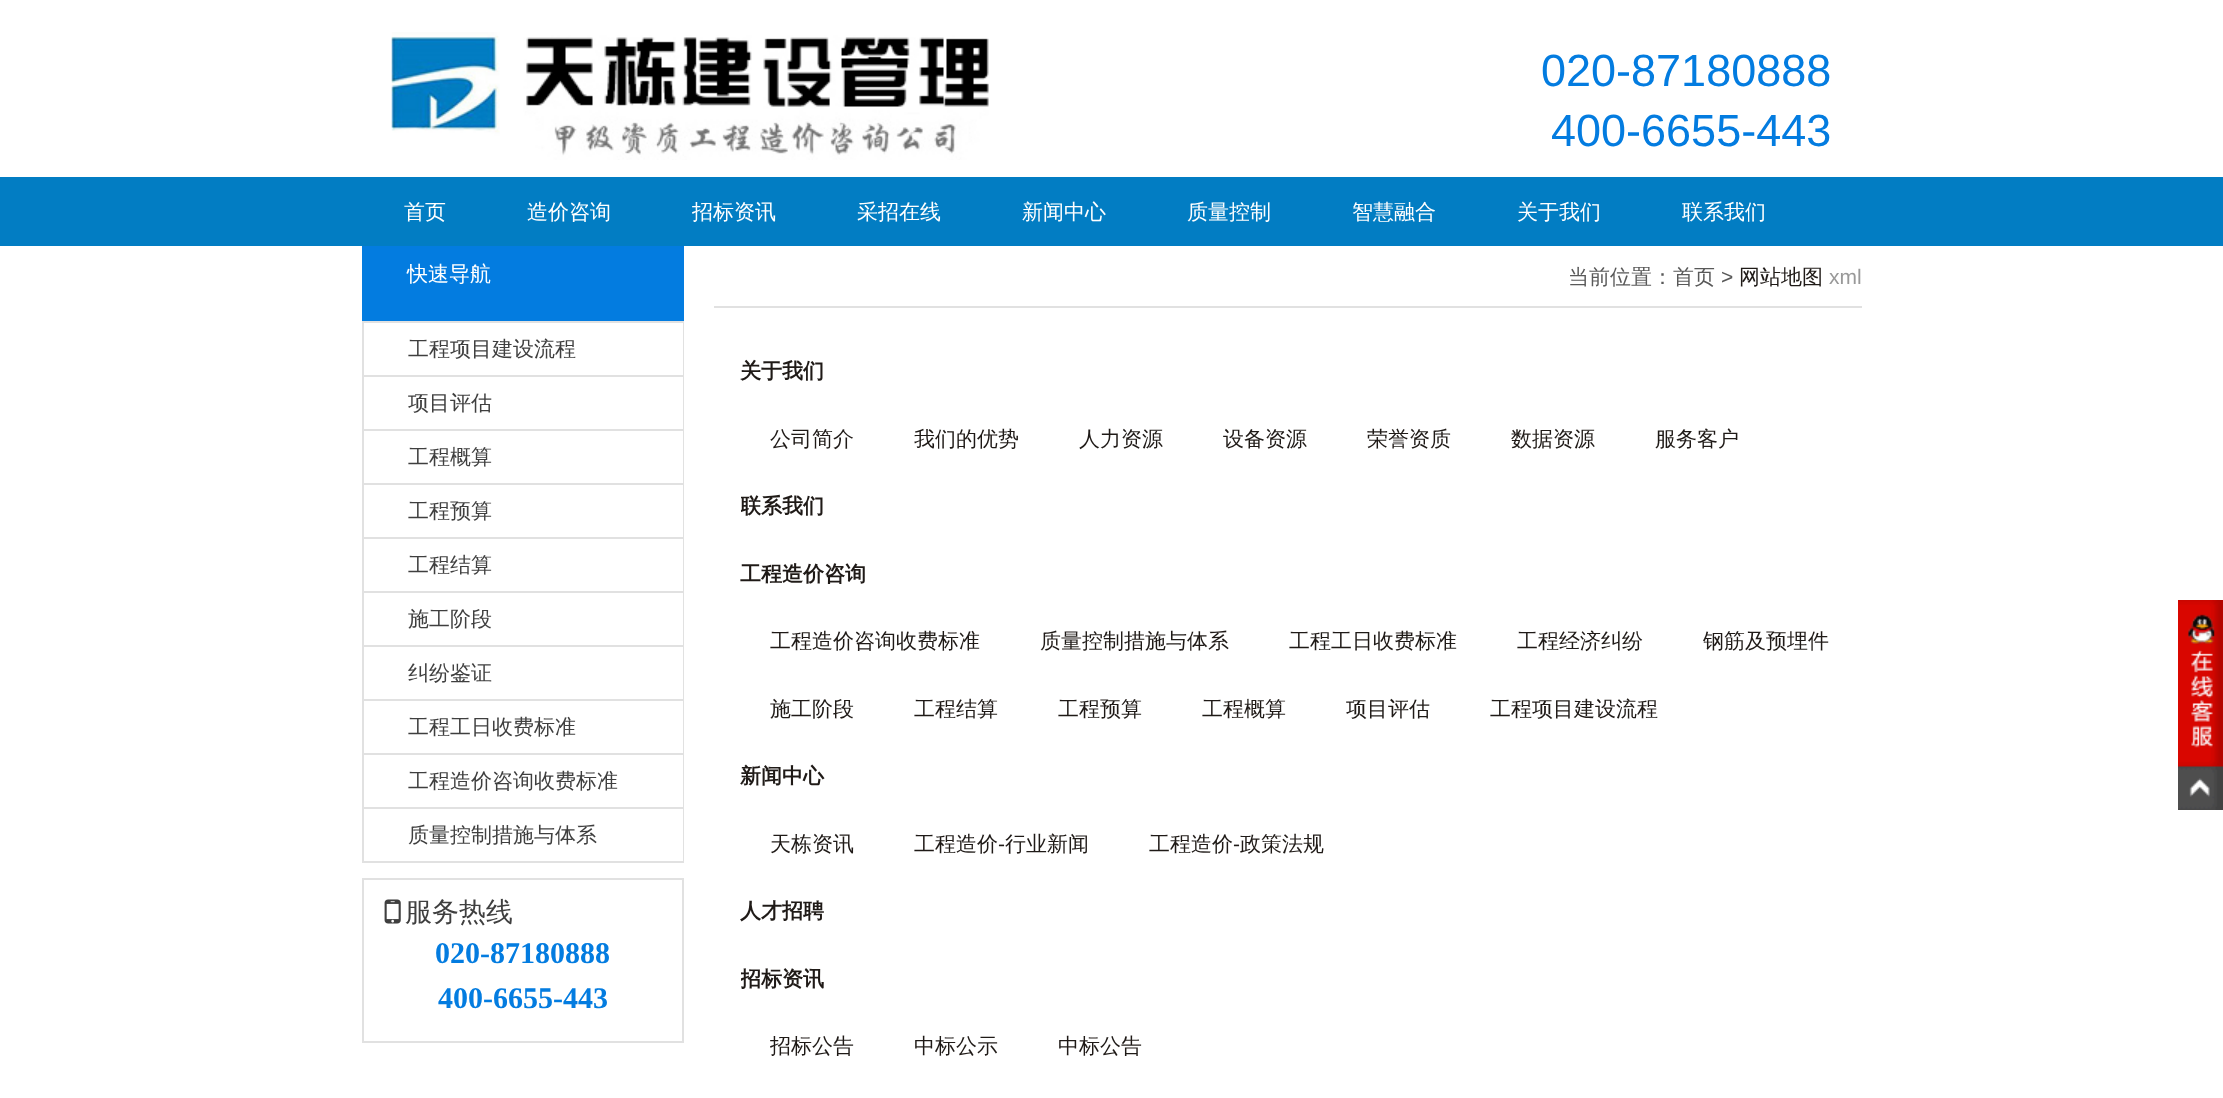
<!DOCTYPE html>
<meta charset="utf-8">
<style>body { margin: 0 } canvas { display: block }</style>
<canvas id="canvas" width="2223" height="1098"></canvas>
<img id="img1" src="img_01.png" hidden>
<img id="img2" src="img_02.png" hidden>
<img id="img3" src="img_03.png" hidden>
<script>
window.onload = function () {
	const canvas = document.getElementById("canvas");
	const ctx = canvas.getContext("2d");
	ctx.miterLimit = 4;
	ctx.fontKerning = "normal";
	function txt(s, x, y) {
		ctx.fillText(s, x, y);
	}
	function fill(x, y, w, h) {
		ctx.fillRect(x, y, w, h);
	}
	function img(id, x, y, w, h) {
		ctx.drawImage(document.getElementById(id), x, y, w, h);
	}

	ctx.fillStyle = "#FFFFFF";
	fill(0, 0, 2223, 1098);
	img("img1", 391, 32, 598, 128);
	ctx.fillStyle = "#027DC3";
	fill(0, 177, 2223, 69);
	ctx.fillStyle = "#037CE0";
	fill(362, 246, 322, 75);
	ctx.fillStyle = "#E1E1E1";
	fill(362, 321, 322, 2);
	fill(683, 321, 1, 542);
	fill(362, 321, 2, 542);
	fill(363, 375, 320, 2);
	fill(363, 429, 320, 2);
	fill(363, 483, 320, 2);
	fill(363, 537, 320, 2);
	fill(363, 591, 320, 2);
	fill(363, 645, 320, 2);
	fill(363, 699, 320, 2);
	fill(363, 753, 320, 2);
	fill(363, 807, 320, 2);
	fill(363, 861, 320, 2);
	ctx.strokeStyle = "#E1E1E1";
	ctx.lineWidth = 2;
	ctx.strokeRect(363, 879, 320, 163);
	img("img2", 384, 899, 17, 25);
	fill(714, 306, 1148, 2);
	img("img3", 2178, 600, 45, 210);
	ctx.font = "45px Liberation Sans";
	ctx.fillStyle = "#037CE0";
	txt("020-87180888", 1541, 86);
	txt("400-6655-443", 1551, 146);
	ctx.font = "500 21px WenQuanYi Zen Hei";
	ctx.fillStyle = "#FFFFFF";
	txt("首页", 404, 219);
	txt("造价咨询", 527, 219);
	txt("招标资讯", 692, 219);
	txt("采招在线", 857, 219);
	txt("新闻中心", 1022, 219);
	txt("质量控制", 1187, 219);
	txt("智慧融合", 1352, 219);
	txt("关于我们", 1517, 219);
	txt("联系我们", 1682, 219);
	txt("快速导航", 407, 281);
	ctx.fillStyle = "#3F3F3F";
	txt("工程项目建设流程", 408, 356);
	txt("项目评估", 408, 410);
	txt("工程概算", 408, 464);
	txt("工程预算", 408, 518);
	txt("工程结算", 408, 572);
	txt("施工阶段", 408, 626);
	txt("纠纷鉴证", 408, 680);
	txt("工程工日收费标准", 408, 734);
	txt("工程造价咨询收费标准", 408, 788);
	txt("质量控制措施与体系", 408, 842);
	ctx.font = "500 27px WenQuanYi Zen Hei";
	txt("服务热线", 405, 921);
	ctx.font = "bold 30px Liberation Serif";
	ctx.fillStyle = "#037CE0";
	txt("020-87180888", 435, 963);
	txt("400-6655-443", 438, 1008);
	ctx.font = "500 21px WenQuanYi Zen Hei";
	ctx.fillStyle = "#595959";
	txt("当前位置：首页", 1568, 284);
	ctx.font = "21px Liberation Sans";
	txt(">", 1721, 284);
	ctx.font = "500 21px WenQuanYi Zen Hei";
	ctx.fillStyle = "#1F1A17";
	txt("网站地图", 1739, 284);
	ctx.font = "21px Liberation Sans";
	ctx.fillStyle = "#999999";
	txt("xml", 1829, 284);
	ctx.font = "bold 21px WenQuanYi Zen Hei";
	ctx.fillStyle = "#1F1A17";
	txt("关于我们", 740, 378);
	ctx.font = "500 21px WenQuanYi Zen Hei";
	txt("公司简介", 770, 446);
	txt("我们的优势", 914, 446);
	txt("人力资源", 1079, 446);
	txt("设备资源", 1223, 446);
	txt("荣誉资质", 1367, 446);
	txt("数据资源", 1511, 446);
	txt("服务客户", 1655, 446);
	ctx.save();
	ctx.beginPath();
	ctx.rect(741, 488, 1121, 37);
	ctx.clip();
	ctx.font = "bold 21px WenQuanYi Zen Hei";
	txt("联系我们", 740, 513);
	ctx.restore();
	ctx.font = "bold 21px WenQuanYi Zen Hei";
	txt("工程造价咨询", 740, 581);
	ctx.font = "500 21px WenQuanYi Zen Hei";
	txt("工程造价咨询收费标准", 770, 648);
	txt("质量控制措施与体系", 1040, 648);
	txt("工程工日收费标准", 1289, 648);
	txt("工程经济纠纷", 1517, 648);
	txt("钢筋及预埋件", 1703, 648);
	txt("施工阶段", 770, 716);
	txt("工程结算", 914, 716);
	txt("工程预算", 1058, 716);
	txt("工程概算", 1202, 716);
	txt("项目评估", 1346, 716);
	txt("工程项目建设流程", 1490, 716);
	ctx.font = "bold 21px WenQuanYi Zen Hei";
	txt("新闻中心", 740, 783);
	ctx.font = "500 21px WenQuanYi Zen Hei";
	txt("天栋资讯", 770, 851);
	txt("工程造价", 914, 851);
	ctx.font = "21px Liberation Sans";
	txt("-", 998, 851);
	ctx.font = "500 21px WenQuanYi Zen Hei";
	txt("行业新闻", 1005, 851);
	txt("工程造价", 1149, 851);
	ctx.font = "21px Liberation Sans";
	txt("-", 1233, 851);
	ctx.font = "500 21px WenQuanYi Zen Hei";
	txt("政策法规", 1240, 851);
	ctx.font = "bold 21px WenQuanYi Zen Hei";
	txt("人才招聘", 740, 918);
	ctx.save();
	ctx.beginPath();
	ctx.rect(741, 960, 1121, 38);
	ctx.clip();
	txt("招标资讯", 740, 986);
	ctx.restore();
	ctx.font = "500 21px WenQuanYi Zen Hei";
	txt("招标公告", 770, 1053);
	txt("中标公示", 914, 1053);
	txt("中标公告", 1058, 1053);
};
</script>
